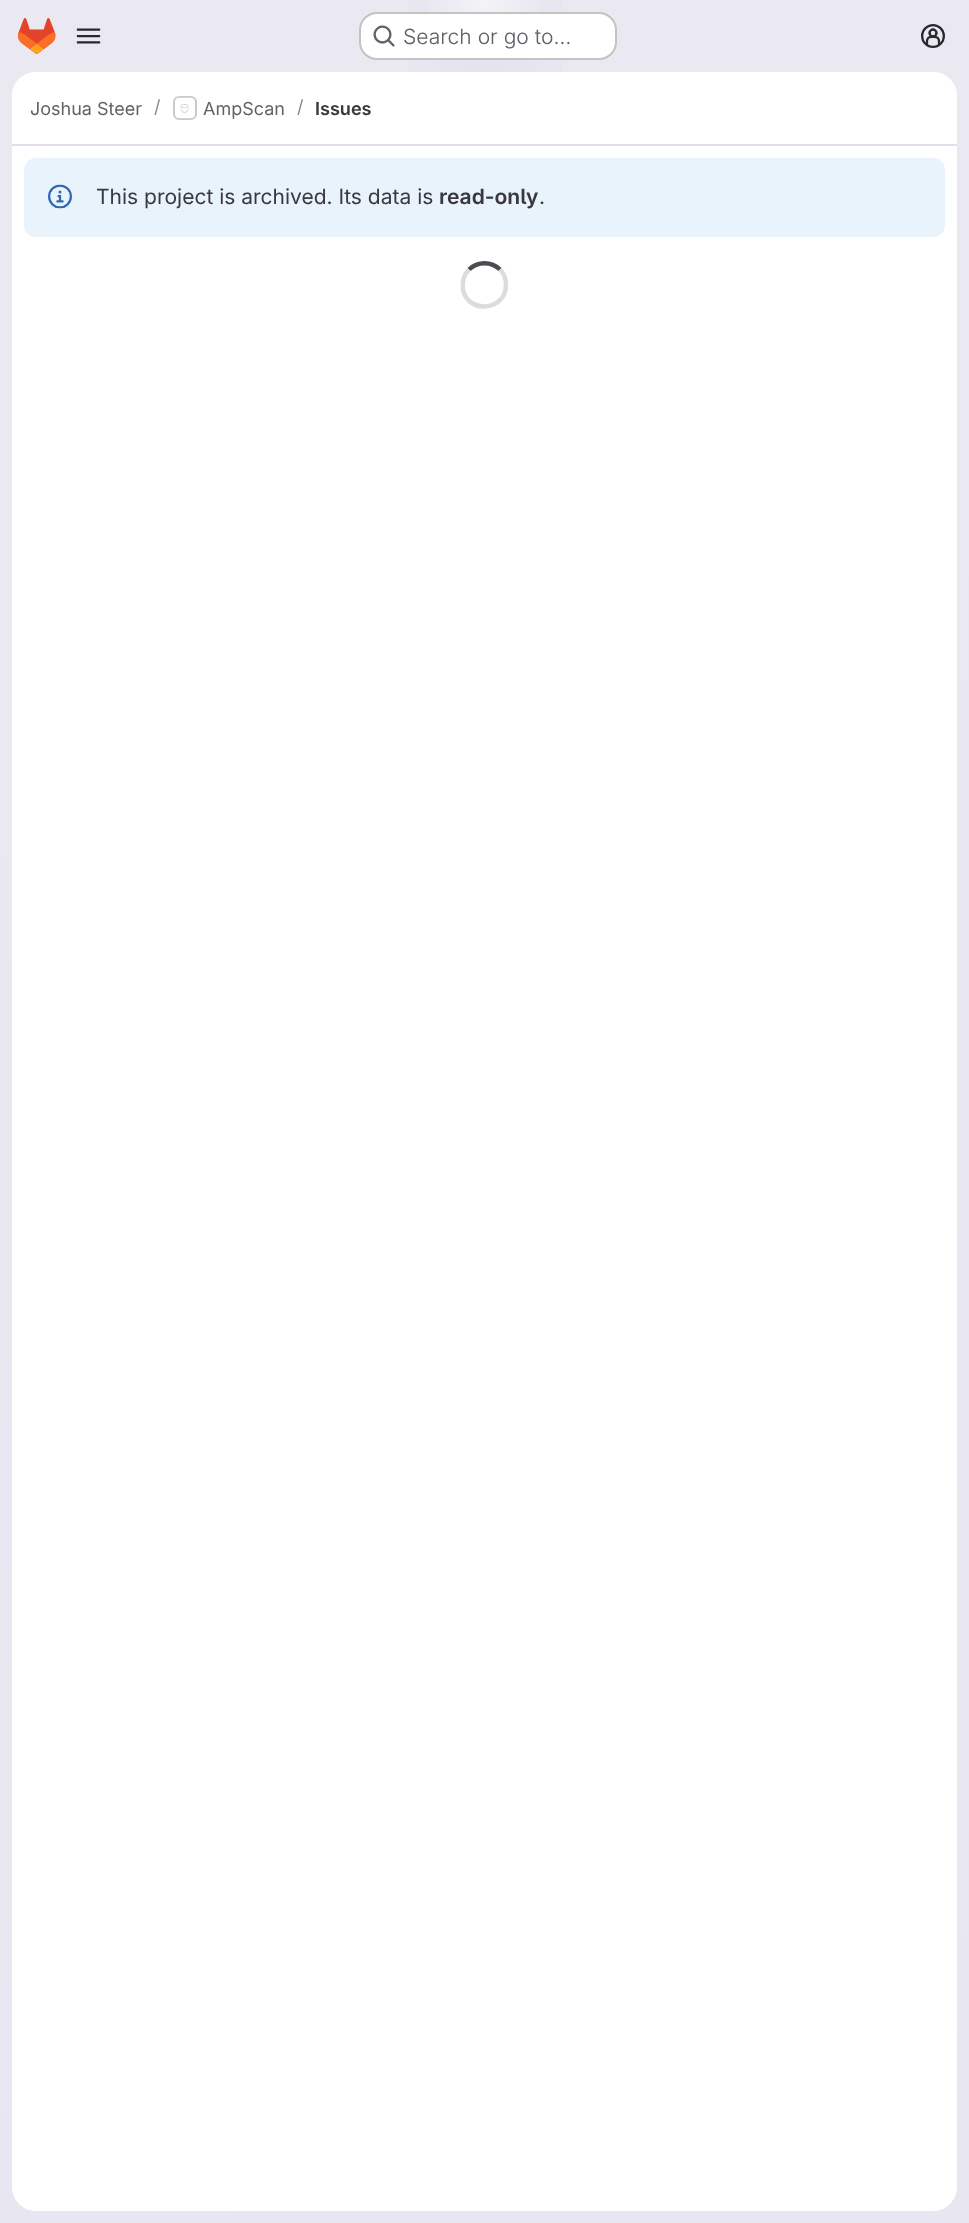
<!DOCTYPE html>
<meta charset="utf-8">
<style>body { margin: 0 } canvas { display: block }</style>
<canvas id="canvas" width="969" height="2223"></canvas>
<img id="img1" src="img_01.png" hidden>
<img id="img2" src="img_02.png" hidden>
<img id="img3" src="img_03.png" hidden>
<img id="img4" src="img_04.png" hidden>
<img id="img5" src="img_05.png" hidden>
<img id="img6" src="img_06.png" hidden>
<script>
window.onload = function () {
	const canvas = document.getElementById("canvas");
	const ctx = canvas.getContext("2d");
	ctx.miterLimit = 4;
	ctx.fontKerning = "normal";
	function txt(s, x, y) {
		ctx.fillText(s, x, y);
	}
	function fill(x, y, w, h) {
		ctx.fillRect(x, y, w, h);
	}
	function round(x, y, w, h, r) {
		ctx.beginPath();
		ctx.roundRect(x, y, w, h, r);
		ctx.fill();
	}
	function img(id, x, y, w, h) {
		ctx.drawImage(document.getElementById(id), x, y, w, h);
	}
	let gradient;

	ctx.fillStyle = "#FFFFFF";
	fill(0, 0, 969, 2223);
	gradient = ctx.createLinearGradient(689, 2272, 280, -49);
	gradient.addColorStop(0, "#E8E6F0");
	gradient.addColorStop(0.7, "#EAE9F2");
	ctx.fillStyle = gradient;
	fill(0, 0, 969, 2223);
	gradient = ctx.createRadialGradient(485, 0, 0, 485, 0, 485);
	gradient.addColorStop(0, "#E4E2ED");
	gradient.addColorStop(0.22, "rgba(228, 226, 237, 0)");
	ctx.fillStyle = gradient;
	ctx.beginPath();
	ctx.rect(408, 0, 154, 72);
	ctx.save();
	ctx.clip();
	ctx.scale(1, 2223 / 485);
	ctx.fillRect(0, 0, 969, 485);
	ctx.restore();
	gradient = ctx.createRadialGradient(485, 0, 0, 485, 0, 485);
	gradient.addColorStop(0, "#E4E2EC");
	gradient.addColorStop(0.15, "rgba(228, 226, 236, 0)");
	ctx.fillStyle = gradient;
	ctx.beginPath();
	ctx.rect(458, 11, 57, 49);
	ctx.save();
	ctx.clip();
	ctx.scale(1, 2223 / 485);
	ctx.fillRect(0, 0, 969, 485);
	ctx.restore();
	gradient = ctx.createRadialGradient(485, 0, 0, 485, 0, 2275);
	gradient.addColorStop(0, "rgba(255, 255, 255, 0.6)");
	gradient.addColorStop(0.03, "rgba(255, 255, 255, 0)");
	ctx.fillStyle = gradient;
	fill(428, 0, 113, 58);
	img("img1", 18, 18, 38, 36);
	img("img2", 76, 28, 25, 16);
	ctx.fillStyle = "#FFFFFF";
	round(359, 12, 258, 48, 18);
	ctx.beginPath();
	ctx.roundRect(360, 13, 256, 46, 17);
	ctx.strokeStyle = "rgba(5, 5, 6, 0.24)";
	ctx.lineWidth = 2;
	ctx.stroke();
	img("img3", 373, 25, 22, 22);
	img("img4", 921, 24, 24, 24);
	round(12, 72, 945, 2139, 24);
	ctx.beginPath();
	ctx.roundRect(12, 72, 945, 74, [24, 24, 0, 0]);
	ctx.fill();
	ctx.fillStyle = "#E1DFEC";
	fill(12, 144, 945, 2);
	ctx.beginPath();
	ctx.roundRect(174, 97, 22, 22, 5);
	ctx.strokeStyle = "#DCDCDE";
	ctx.stroke();
	img("img5", 176, 97, 16, 22);
	ctx.beginPath();
	ctx.roundRect(174, 97, 22, 22, 5);
	ctx.strokeStyle = "rgba(5, 5, 6, 0.08)";
	ctx.stroke();
	ctx.fillStyle = "#E9F3FC";
	round(24, 158, 921, 79, 12);
	img("img6", 48, 184, 24, 25);
	ctx.beginPath();
	ctx.moveTo(469, 269.5);
	ctx.bezierCurveTo(477.5, 261, 491.5, 261, 500, 269.5);
	ctx.strokeStyle = "#4C4B51";
	ctx.lineWidth = 4.5;
	ctx.stroke();
	ctx.beginPath();
	ctx.moveTo(500, 269.5);
	ctx.bezierCurveTo(504, 273.5, 506, 279.5, 506, 285);
	ctx.bezierCurveTo(506, 311, 468, 314.5, 463, 289.5);
	ctx.bezierCurveTo(462, 282, 464, 274.5, 469, 269.5);
	ctx.strokeStyle = "#DCDCDE";
	ctx.stroke();
	ctx.font = "300 21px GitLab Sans";
	ctx.fillStyle = "#626168";
	txt("Search or go to…", 403, 44);
	ctx.font = "18px GitLab Sans";
	txt("Joshua Steer", 30, 115);
	ctx.fillStyle = "#89888D";
	txt("/", 154, 113);
	ctx.fillStyle = "#626168";
	txt("AmpScan", 203, 115);
	ctx.fillStyle = "#89888D";
	txt("/", 297, 113);
	ctx.font = "600 18px GitLab Sans";
	ctx.fillStyle = "#3A383F";
	txt("Issues", 315, 115);
	ctx.font = "21px GitLab Sans";
	txt("This project is archived. Its data is", 96, 204);
	ctx.font = "600 21px GitLab Sans";
	txt("read-only", 439, 204);
	ctx.font = "21px GitLab Sans";
	txt(".", 539, 204);
};
</script>
